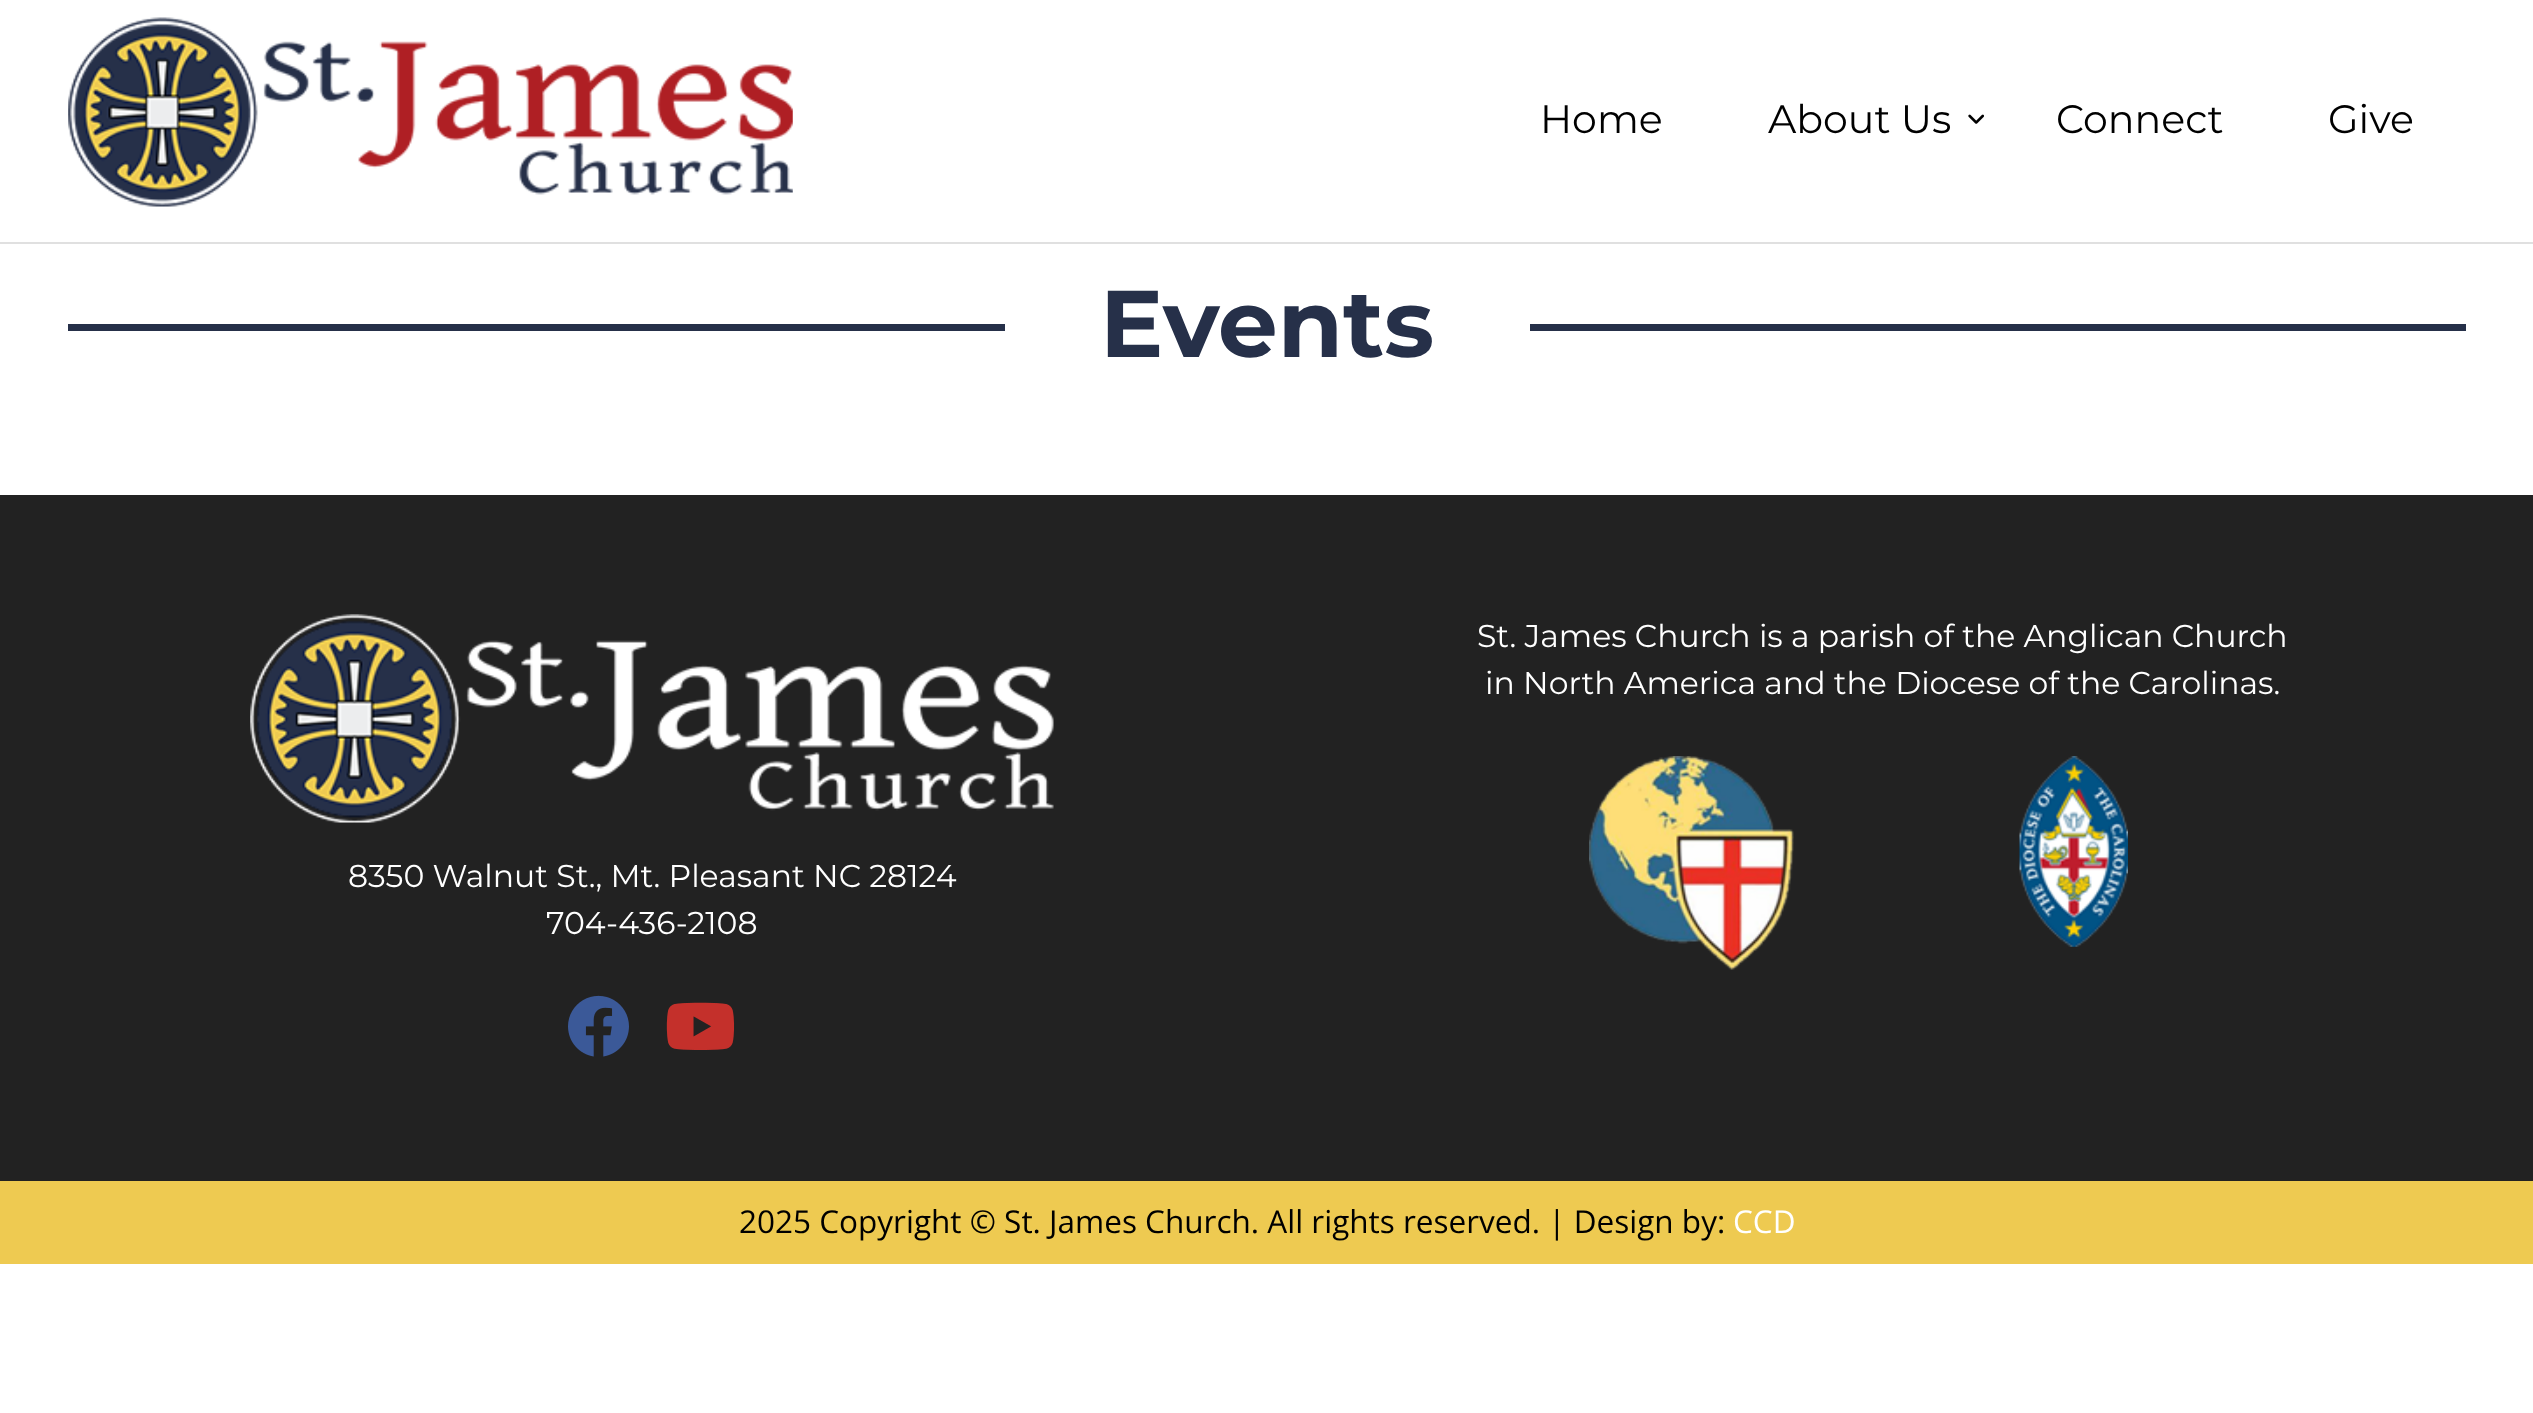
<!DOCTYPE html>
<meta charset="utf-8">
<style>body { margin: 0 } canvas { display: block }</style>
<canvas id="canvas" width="2533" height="1413"></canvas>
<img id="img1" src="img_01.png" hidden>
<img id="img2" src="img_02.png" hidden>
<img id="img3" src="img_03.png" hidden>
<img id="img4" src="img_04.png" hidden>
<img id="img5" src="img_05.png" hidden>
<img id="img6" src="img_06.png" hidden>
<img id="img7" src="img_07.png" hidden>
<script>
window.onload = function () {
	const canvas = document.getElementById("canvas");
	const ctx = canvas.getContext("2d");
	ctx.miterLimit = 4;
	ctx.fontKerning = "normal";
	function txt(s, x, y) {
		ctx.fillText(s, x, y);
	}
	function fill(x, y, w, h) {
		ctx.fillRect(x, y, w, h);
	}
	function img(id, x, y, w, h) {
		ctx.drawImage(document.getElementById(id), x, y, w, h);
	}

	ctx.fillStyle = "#FFFFFF";
	fill(0, 0, 2533, 1413);
	ctx.fillStyle = "#E0E0E0";
	fill(0, 242, 2533, 2);
	img("img1", 68, 17, 725, 190);
	img("img2", 1968, 114, 16, 10);
	ctx.fillStyle = "#263049";
	fill(68, 324, 937, 7);
	fill(1530, 324, 936, 7);
	ctx.fillStyle = "#222222";
	fill(0, 495, 2533, 686);
	img("img3", 1589, 756, 205, 214);
	img("img4", 2019, 756, 109, 191);
	img("img5", 250, 614, 804, 209);
	img("img6", 568, 995, 61, 62);
	img("img7", 666, 1002, 69, 48);
	ctx.fillStyle = "#EECA51";
	fill(0, 1181, 2533, 83);
	ctx.font = "39.5px Montserrat";
	ctx.fillStyle = "#000000";
	txt("Home", 1540, 133);
	txt("About Us", 1768, 133);
	txt("Connect", 2056, 133);
	txt("Give", 2328, 133);
	ctx.font = "bold 94.5px Montserrat";
	ctx.fillStyle = "#263049";
	txt("Events", 1100, 357);
	ctx.font = "31.5px Montserrat";
	ctx.fillStyle = "#FFFFFF";
	txt("St. James Church is a parish of the Anglican Church", 1477, 647);
	txt("in North America and the Diocese of the Carolinas.", 1485, 694);
	txt("8350 Walnut St., Mt. Pleasant NC 28124", 348, 887);
	txt("704-436-2108", 546, 934);
	ctx.font = "31.5px Open Sans";
	ctx.fillStyle = "#000000";
	txt("2025 Copyright © St. James Church. All rights reserved. | Design by:", 739, 1233);
	ctx.fillStyle = "#FFFFFF";
	txt("CCD", 1733, 1233);
};
</script>
